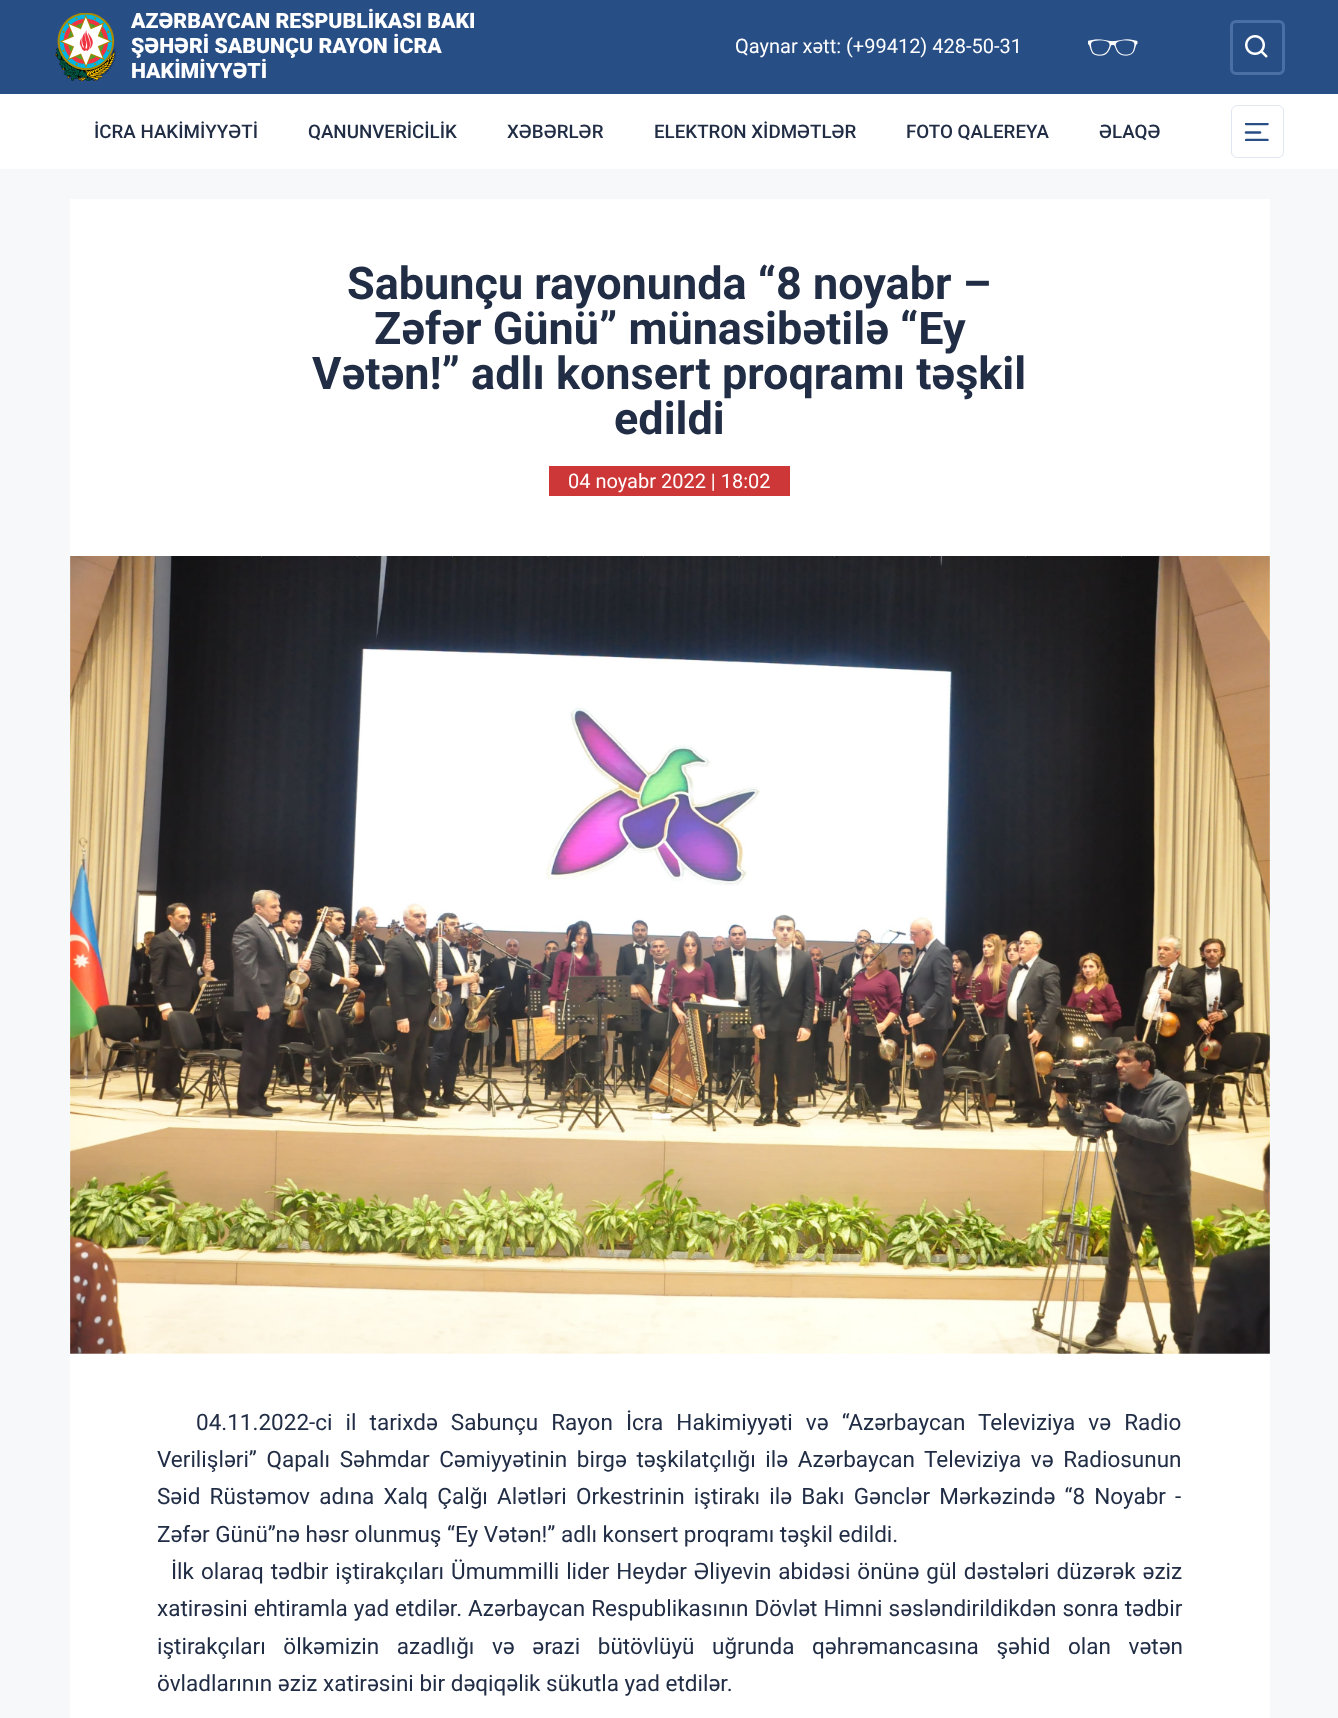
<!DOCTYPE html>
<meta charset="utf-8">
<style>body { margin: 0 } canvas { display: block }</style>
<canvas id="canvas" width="1338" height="1718"></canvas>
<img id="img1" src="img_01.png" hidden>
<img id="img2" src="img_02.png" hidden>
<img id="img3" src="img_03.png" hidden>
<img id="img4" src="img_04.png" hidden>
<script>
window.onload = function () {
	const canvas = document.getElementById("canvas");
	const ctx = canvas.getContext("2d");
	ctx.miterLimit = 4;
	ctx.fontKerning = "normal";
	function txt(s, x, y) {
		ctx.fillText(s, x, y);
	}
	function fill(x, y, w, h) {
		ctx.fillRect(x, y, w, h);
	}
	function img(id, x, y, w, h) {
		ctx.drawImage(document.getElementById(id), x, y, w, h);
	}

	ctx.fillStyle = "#F7F8F9";
	fill(0, 0, 1338, 1718);
	ctx.fillStyle = "#284E86";
	fill(0, 0, 1338, 94);
	img("img1", 55, 13, 61, 68);
	img("img2", 1088, 39, 50, 17);
	ctx.beginPath();
	ctx.roundRect(1231.5, 21.5, 52, 52, 4.5);
	ctx.strokeStyle = "#4A6FA5";
	ctx.lineWidth = 3;
	ctx.stroke();
	img("img3", 1245, 35, 23, 23);
	ctx.fillStyle = "#FFFFFF";
	fill(0, 94, 1338, 75);
	ctx.save();
	ctx.beginPath();
	ctx.rect(1245, 123, 24, 18);
	ctx.clip();
	ctx.beginPath();
	ctx.moveTo(1246, 124);
	ctx.lineTo(1267.5, 124);
	ctx.strokeStyle = "#284E86";
	ctx.lineWidth = 2.5;
	ctx.lineCap = "round";
	ctx.stroke();
	ctx.restore();
	ctx.beginPath();
	ctx.moveTo(1246, 132.5);
	ctx.lineTo(1260, 132.5);
	ctx.strokeStyle = "#284E86";
	ctx.lineWidth = 2.5;
	ctx.lineCap = "round";
	ctx.stroke();
	ctx.save();
	ctx.beginPath();
	ctx.rect(1245, 123, 24, 18);
	ctx.clip();
	ctx.beginPath();
	ctx.moveTo(1246, 140);
	ctx.lineTo(1267.5, 140);
	ctx.stroke();
	ctx.restore();
	ctx.beginPath();
	ctx.roundRect(1231.5, 105.5, 52, 52, 5.5);
	ctx.strokeStyle = "#E0E7F1";
	ctx.lineWidth = 1;
	ctx.stroke();
	fill(70, 199, 1200, 1519);
	ctx.fillStyle = "#CD3737";
	fill(549, 466, 241, 30);
	img("img4", 70, 556, 1200, 798);
	ctx.font = "900 21.25px Roboto";
	ctx.fillStyle = "#FFFFFF";
	txt("AZƏRBAYCAN RESPUBLİKASI BAKI", 131, 28);
	txt("ŞƏHƏRİ SABUNÇU RAYON İCRA", 131, 53);
	txt("HAKİMİYYƏTİ", 131, 78);
	ctx.font = "20px Roboto";
	txt("Qaynar xətt: (+99412) 428-50-31", 735, 53);
	ctx.font = "500 18.75px Roboto";
	ctx.fillStyle = "#212D45";
	txt("İCRA HAKİMİYYƏTİ", 94, 138);
	txt("QANUNVERİCİLİK", 308, 138);
	txt("XƏBƏRLƏR", 507, 138);
	txt("ELEKTRON XİDMƏTLƏR", 654, 138);
	txt("FOTO QALEREYA", 906, 138);
	txt("ƏLAQƏ", 1099, 138);
	ctx.font = "bold 45px Roboto";
	txt("Sabunçu rayonunda “8 noyabr –", 347, 299);
	txt("Zəfər Günü” münasibətilə “Ey", 374, 344);
	txt("Vətən!” adlı konsert proqramı təşkil", 312, 389);
	txt("edildi", 614, 434);
	ctx.font = "20px Roboto";
	ctx.fillStyle = "#FFFFFF";
	txt("04 noyabr 2022 | 18:02", 568, 488);
	ctx.wordSpacing = "7.5px";
	ctx.font = "22.5px Roboto";
	ctx.fillStyle = "#212D45";
	txt("04.11.2022-ci il tarixdə Sabunçu Rayon İcra Hakimiyyəti və “Azərbaycan Televiziya və Radio", 196, 1430);
	ctx.wordSpacing = "4px";
	txt("Verilişləri” Qapalı Səhmdar Cəmiyyətinin birgə təşkilatçılığı ilə Azərbaycan Televiziya və Radiosunun", 157, 1467);
	ctx.wordSpacing = "3.6px";
	txt("Səid Rüstəmov adına Xalq Çalğı Alətləri Orkestrinin iştirakı ilə Bakı Gənclər Mərkəzində “8 Noyabr -", 157, 1504);
	ctx.wordSpacing = "0px";
	txt("Zəfər Günü”nə həsr olunmuş “Ey Vətən!” adlı konsert proqramı təşkil edildi.", 157, 1542);
	ctx.wordSpacing = "1.4px";
	txt("İlk olaraq tədbir iştirakçıları Ümummilli lider Heydər Əliyevin abidəsi önünə gül dəstələri düzərək əziz", 171, 1579);
	ctx.wordSpacing = "0.4px";
	txt("xatirəsini ehtiramla yad etdilər. Azərbaycan Respublikasının Dövlət Himni səsləndirildikdən sonra tədbir", 157, 1616);
	ctx.wordSpacing = "12px";
	txt("iştirakçıları ölkəmizin azadlığı və ərazi bütövlüyü uğrunda qəhrəmancasına şəhid olan vətən", 157, 1654);
	ctx.wordSpacing = "0px";
	txt("övladlarının əziz xatirəsini bir dəqiqəlik sükutla yad etdilər.", 157, 1691);
};
</script>
